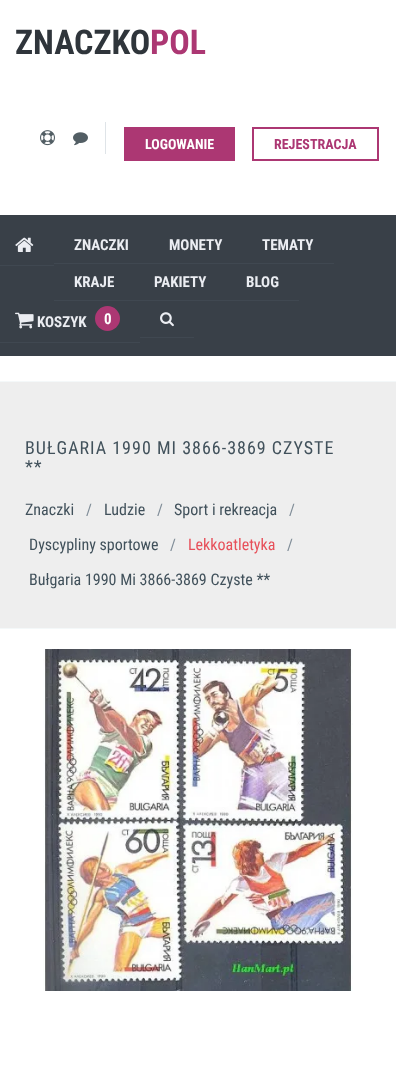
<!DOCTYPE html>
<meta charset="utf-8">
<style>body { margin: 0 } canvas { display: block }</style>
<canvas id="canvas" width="396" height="1074"></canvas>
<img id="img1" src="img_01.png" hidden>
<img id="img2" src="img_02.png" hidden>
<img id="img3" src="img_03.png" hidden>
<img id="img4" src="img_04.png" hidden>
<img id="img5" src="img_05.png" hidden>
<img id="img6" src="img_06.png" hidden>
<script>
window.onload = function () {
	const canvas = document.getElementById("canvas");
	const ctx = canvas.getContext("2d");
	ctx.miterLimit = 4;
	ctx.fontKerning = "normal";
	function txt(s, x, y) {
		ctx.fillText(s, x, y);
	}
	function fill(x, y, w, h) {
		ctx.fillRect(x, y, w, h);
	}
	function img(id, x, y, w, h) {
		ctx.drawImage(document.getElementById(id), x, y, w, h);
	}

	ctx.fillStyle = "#FFFFFF";
	fill(0, 0, 396, 1074);
	ctx.fillStyle = "#394048";
	fill(0, 215, 396, 141);
	img("img1", 40, 130, 15, 16);
	img("img2", 73, 132, 15, 14);
	ctx.fillStyle = "#DFE4E8";
	fill(105, 122, 1, 32);
	ctx.fillStyle = "#AC3773";
	fill(124, 127, 111, 34);
	ctx.strokeStyle = "#AC3773";
	ctx.lineWidth = 2;
	ctx.strokeRect(253, 128, 125, 32);
	ctx.fillStyle = "#404851";
	fill(0, 265, 54, 1);
	img("img3", 15, 237, 19, 15);
	fill(54, 263, 280, 1);
	fill(54, 300, 245, 1);
	fill(0, 342, 140, 1);
	img("img4", 15, 312, 19, 17);
	ctx.fillStyle = "#AC3773";
	ctx.beginPath();
	ctx.arc(107.5, 318.5, 12.5, 0, Math.PI * 2);
	ctx.fill();
	ctx.fillStyle = "#404851";
	fill(140, 337, 54, 1);
	img("img5", 160, 312, 14, 15);
	ctx.fillStyle = "#EEEEEE";
	fill(0, 382, 396, 246);
	ctx.fillStyle = "#F4F8F9";
	fill(0, 381, 396, 1);
	fill(0, 628, 396, 1);
	img("img6", 43, 649, 310, 342);
	ctx.font = "bold 34px Roboto Condensed";
	ctx.fillStyle = "#2F353B";
	txt("ZNACZKO", 15, 54);
	ctx.fillStyle = "#AC3773";
	txt("POL", 150, 54);
	ctx.font = "bold 14px Roboto Condensed";
	ctx.fillStyle = "#FFFFFF";
	txt("LOGOWANIE", 145, 149);
	ctx.fillStyle = "#AC3773";
	txt("REJESTRACJA", 274, 149);
	ctx.font = "bold 15px Roboto Condensed";
	ctx.fillStyle = "#EBEDF2";
	txt("ZNACZKI", 74, 250);
	txt("MONETY", 169, 250);
	txt("TEMATY", 262, 250);
	txt("KRAJE", 74, 287);
	txt("PAKIETY", 154, 287);
	txt("BLOG", 246, 287);
	txt("KOSZYK", 37, 327);
	ctx.fillStyle = "#FFFFFF";
	txt("0", 104, 324);
	ctx.letterSpacing = "1px";
	ctx.font = "18px Roboto Condensed";
	ctx.fillStyle = "#41515B";
	txt("BUŁGARIA 1990 MI 3866-3869 CZYSTE", 25, 454);
	txt("**", 25, 473);
	ctx.letterSpacing = "0px";
	ctx.font = "16px Roboto Condensed";
	txt("Znaczki", 25, 515);
	ctx.fillStyle = "#7F8C97";
	txt("/", 86, 515);
	ctx.fillStyle = "#41515B";
	txt("Ludzie", 104, 515);
	ctx.fillStyle = "#7F8C97";
	txt("/", 157, 515);
	ctx.fillStyle = "#41515B";
	txt("Sport i rekreacja", 174, 515);
	ctx.fillStyle = "#7F8C97";
	txt("/", 289, 515);
	ctx.fillStyle = "#41515B";
	txt("Dyscypliny sportowe", 29, 550);
	ctx.fillStyle = "#7F8C97";
	txt("/", 170, 550);
	ctx.fillStyle = "#E7505A";
	txt("Lekkoatletyka", 188, 550);
	ctx.fillStyle = "#7F8C97";
	txt("/", 287, 550);
	ctx.fillStyle = "#41515B";
	txt("Bułgaria 1990 Mi 3866-3869 Czyste **", 29, 585);
};
</script>
